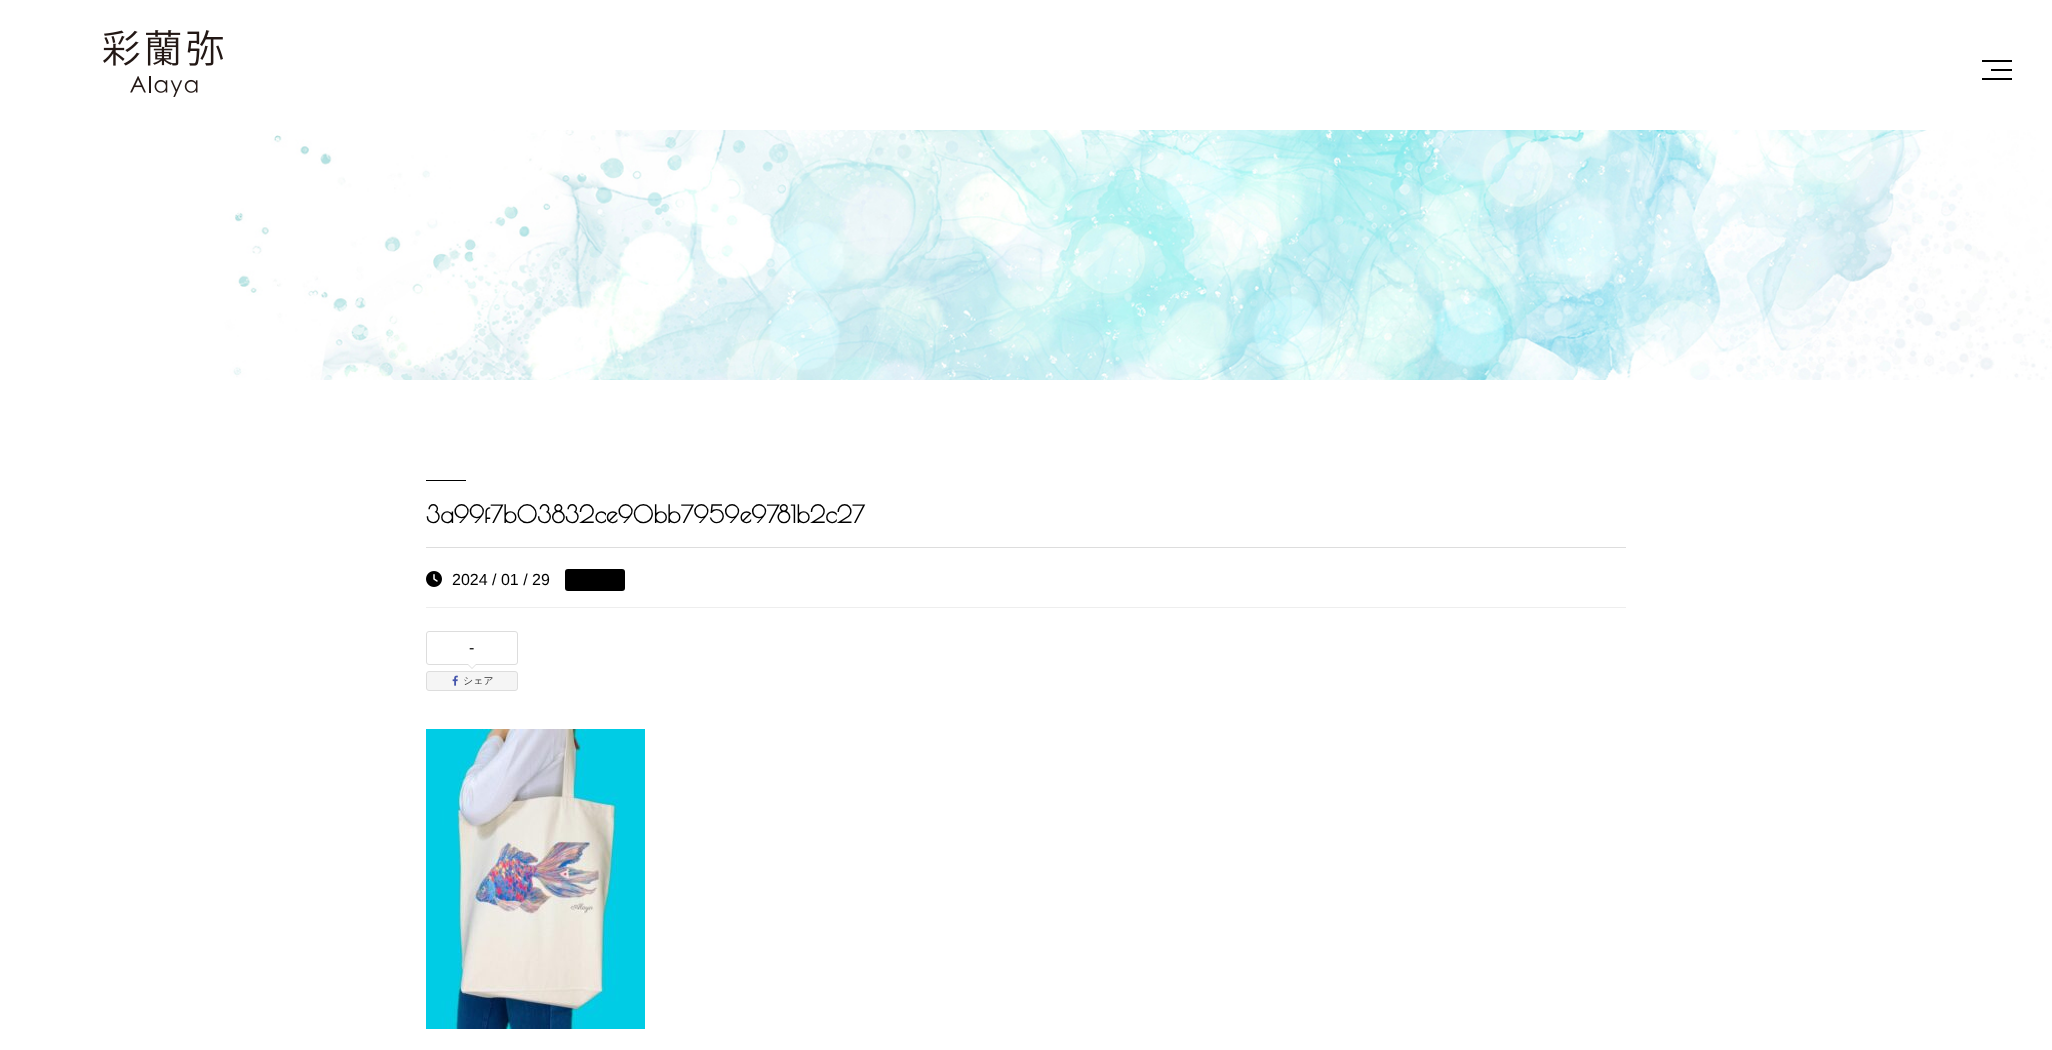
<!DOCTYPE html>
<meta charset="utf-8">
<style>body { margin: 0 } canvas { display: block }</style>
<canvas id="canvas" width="2052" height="1050"></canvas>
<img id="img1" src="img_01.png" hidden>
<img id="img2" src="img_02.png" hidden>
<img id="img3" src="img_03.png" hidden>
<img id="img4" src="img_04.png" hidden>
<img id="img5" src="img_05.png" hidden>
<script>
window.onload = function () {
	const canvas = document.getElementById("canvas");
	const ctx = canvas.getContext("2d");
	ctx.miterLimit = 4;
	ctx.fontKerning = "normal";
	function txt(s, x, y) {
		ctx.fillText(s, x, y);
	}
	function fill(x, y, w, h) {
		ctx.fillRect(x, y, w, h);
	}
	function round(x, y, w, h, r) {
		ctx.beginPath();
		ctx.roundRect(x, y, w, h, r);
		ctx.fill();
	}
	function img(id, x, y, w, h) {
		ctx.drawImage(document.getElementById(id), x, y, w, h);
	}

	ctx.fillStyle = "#FFFFFF";
	fill(0, 0, 2052, 1050);
	img("img1", 103, 30, 120, 67);
	ctx.fillStyle = "#000000";
	fill(1982, 60, 30, 2);
	fill(1991, 69, 21, 2);
	fill(1982, 78, 30, 2);
	img("img2", 0, 130, 2052, 250);
	ctx.fillStyle = "#DDDDDD";
	fill(426, 547, 1200, 1);
	ctx.fillStyle = "#000000";
	fill(426, 480, 40, 1);
	ctx.fillStyle = "#EEEEEE";
	fill(426, 607, 1200, 1);
	img("img3", 426, 571, 16, 16);
	ctx.fillStyle = "#000000";
	round(565, 569, 60, 22, 3);
	ctx.beginPath();
	ctx.roundRect(426.5, 631.5, 91, 33, 2.5);
	ctx.strokeStyle = "#DDDDDD";
	ctx.stroke();
	ctx.fillStyle = "#DDDDDD";
	ctx.beginPath();
	ctx.moveTo(467, 664);
	ctx.lineTo(477, 664);
	ctx.lineTo(472, 669);
	ctx.closePath();
	ctx.fill();
	ctx.fillStyle = "#FFFFFF";
	ctx.beginPath();
	ctx.moveTo(467, 663);
	ctx.lineTo(477, 663);
	ctx.lineTo(472, 668);
	ctx.closePath();
	ctx.fill();
	ctx.fillStyle = "#F5F5F5";
	ctx.beginPath();
	ctx.roundRect(426.5, 671.5, 91, 19, 2.5);
	ctx.fill();
	ctx.stroke();
	img("img4", 452, 675, 6, 11);
	img("img5", 426, 729, 219, 300);
	ctx.font = "bold 24px Poiret One";
	ctx.fillStyle = "#000000";
	txt("3a99f7b03832ce90bb7959e9781b2c27", 426, 523);
	ctx.font = "16px Liberation Sans";
	txt("2024 / 01 / 29", 452, 585);
	txt("-", 469, 653);
	ctx.font = "500 10px WenQuanYi Zen Hei";
	ctx.fillStyle = "#333333";
	txt("シェア", 463, 684);
};
</script>
